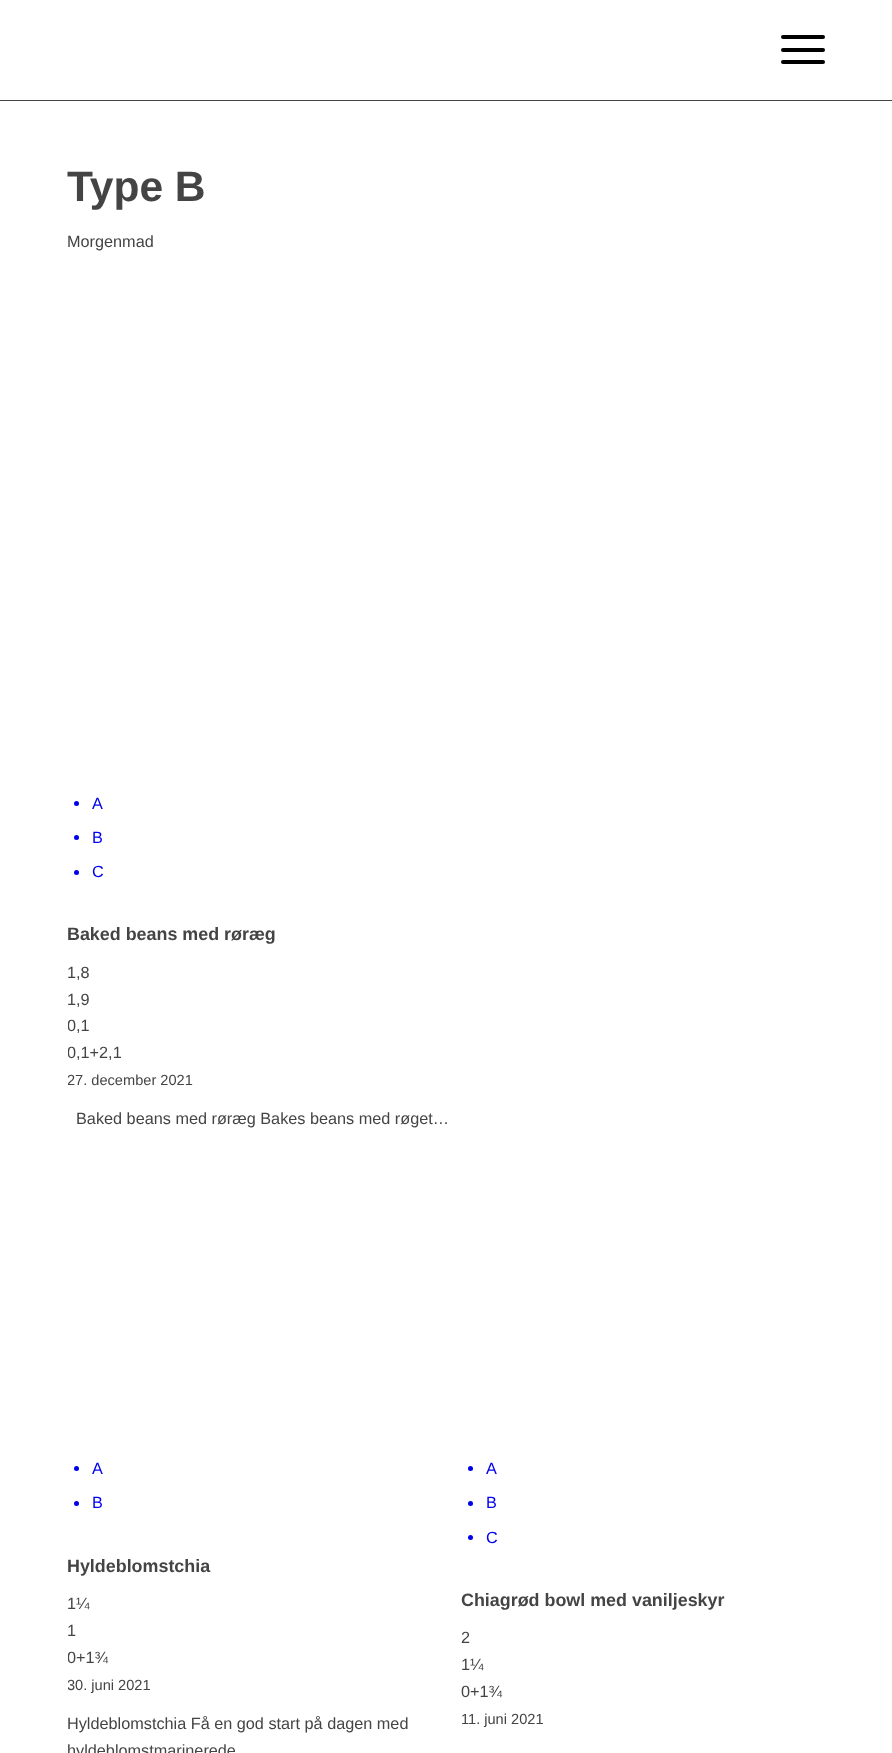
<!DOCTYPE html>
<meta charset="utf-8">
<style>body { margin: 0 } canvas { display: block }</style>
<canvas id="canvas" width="892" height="1753"></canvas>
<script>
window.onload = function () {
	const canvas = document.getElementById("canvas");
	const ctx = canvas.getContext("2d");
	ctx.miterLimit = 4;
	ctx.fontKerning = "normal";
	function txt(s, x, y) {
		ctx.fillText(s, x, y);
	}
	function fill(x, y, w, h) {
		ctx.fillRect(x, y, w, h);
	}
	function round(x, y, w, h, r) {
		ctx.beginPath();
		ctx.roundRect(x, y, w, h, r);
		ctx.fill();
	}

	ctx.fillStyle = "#FFFFFF";
	fill(0, 0, 892, 1753);
	ctx.fillStyle = "#444444";
	fill(0, 100, 892, 1);
	ctx.fillStyle = "#000000";
	round(781, 48, 44, 4, 2);
	round(781, 35, 44, 4, 2);
	round(781, 60, 44, 4, 2);
	ctx.fillStyle = "#0000EE";
	ctx.beginPath();
	ctx.arc(76.5, 803.5, 2.5, 0, Math.PI * 2);
	ctx.fill();
	ctx.beginPath();
	ctx.arc(76.5, 837.5, 2.5, 0, Math.PI * 2);
	ctx.fill();
	ctx.beginPath();
	ctx.arc(76.5, 872.5, 2.5, 0, Math.PI * 2);
	ctx.fill();
	ctx.beginPath();
	ctx.arc(76.5, 1468.5, 2.5, 0, Math.PI * 2);
	ctx.fill();
	ctx.beginPath();
	ctx.arc(76.5, 1503.5, 2.5, 0, Math.PI * 2);
	ctx.fill();
	ctx.beginPath();
	ctx.arc(470.5, 1468.5, 2.5, 0, Math.PI * 2);
	ctx.fill();
	ctx.beginPath();
	ctx.arc(470.5, 1503.5, 2.5, 0, Math.PI * 2);
	ctx.fill();
	ctx.beginPath();
	ctx.arc(470.5, 1537.5, 2.5, 0, Math.PI * 2);
	ctx.fill();
	ctx.font = "bold 42.5px Liberation Sans";
	ctx.fillStyle = "#444444";
	txt("Type B", 67, 201);
	ctx.font = "16.25px Liberation Sans";
	txt("Morgenmad", 67, 247);
	ctx.fillStyle = "#0000EE";
	txt("A", 92, 809);
	txt("B", 92, 843);
	txt("C", 92, 877);
	ctx.font = "bold 17.9px Liberation Sans";
	ctx.fillStyle = "#444444";
	txt("Baked beans med røræg", 67, 940);
	ctx.font = "16.25px Liberation Sans";
	txt("1,8", 67, 978);
	txt("1,9", 67, 1005);
	ctx.save();
	ctx.beginPath();
	ctx.rect(68, 286, 757, 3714);
	ctx.clip();
	txt("0,1", 67, 1031);
	txt("0,1+2,1", 67, 1058);
	ctx.font = "14.6px Liberation Sans";
	txt("27. december 2021", 67, 1085);
	ctx.restore();
	txt("Baked beans med røræg Bakes beans med røget…", 76, 1124);
	ctx.fillStyle = "#0000EE";
	txt("A", 92, 1474);
	txt("B", 92, 1508);
	ctx.font = "bold 17.9px Liberation Sans";
	ctx.fillStyle = "#444444";
	txt("Hyldeblomstchia", 67, 1572);
	ctx.font = "16.25px Liberation Sans";
	txt("1¼", 67, 1609);
	txt("1", 67, 1636);
	ctx.save();
	ctx.beginPath();
	ctx.rect(68, 286, 757, 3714);
	ctx.clip();
	txt("0+1¾", 67, 1663);
	ctx.font = "14.6px Liberation Sans";
	txt("30. juni 2021", 67, 1690);
	ctx.restore();
	txt("Hyldeblomstchia Få en god start på dagen med", 67, 1729);
	txt("hyldeblomstmarinerede", 67, 1756);
	ctx.fillStyle = "#0000EE";
	txt("A", 486, 1474);
	txt("B", 486, 1508);
	txt("C", 486, 1543);
	ctx.font = "bold 17.9px Liberation Sans";
	ctx.fillStyle = "#444444";
	txt("Chiagrød bowl med vaniljeskyr", 461, 1606);
	ctx.font = "16.25px Liberation Sans";
	txt("2", 461, 1643);
	txt("1¼", 461, 1670);
	txt("0+1¾", 461, 1697);
	ctx.font = "14.6px Liberation Sans";
	txt("11. juni 2021", 461, 1724);
};
</script>
